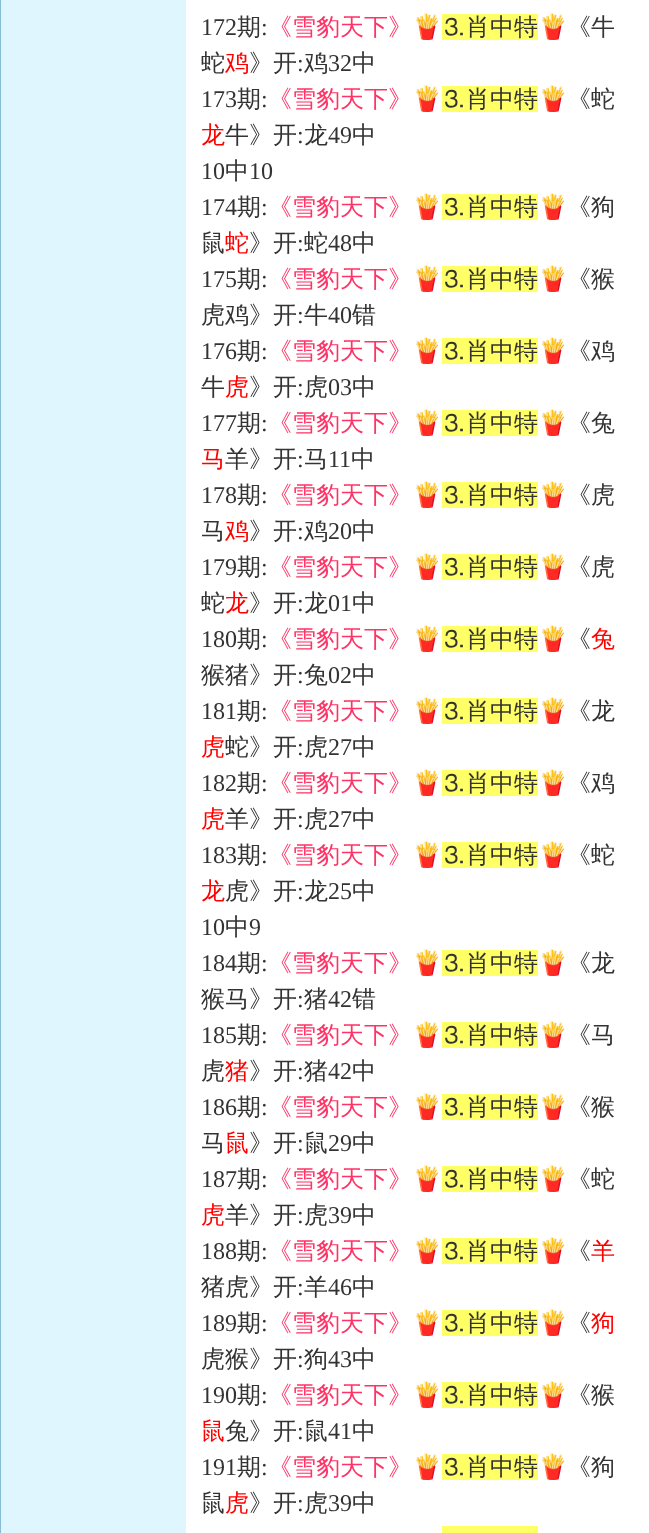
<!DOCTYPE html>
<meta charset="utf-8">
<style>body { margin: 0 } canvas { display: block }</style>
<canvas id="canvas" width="649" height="1533"></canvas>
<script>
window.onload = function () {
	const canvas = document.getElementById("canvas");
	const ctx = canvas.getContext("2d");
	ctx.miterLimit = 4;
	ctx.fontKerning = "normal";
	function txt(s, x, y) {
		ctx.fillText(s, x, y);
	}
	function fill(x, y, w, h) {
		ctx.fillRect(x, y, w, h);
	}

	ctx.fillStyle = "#87BCD8";
	fill(0, 0, 649, 1533);
	ctx.fillStyle = "#DFF6FF";
	fill(1, 0, 185, 1533);
	ctx.fillStyle = "#FFFFFF";
	fill(186, 0, 463, 1533);
	ctx.fillStyle = "#FFFF66";
	fill(442, 14, 96, 26);
	fill(442, 86, 96, 26);
	fill(442, 194, 96, 26);
	fill(442, 266, 96, 26);
	fill(442, 338, 96, 26);
	fill(442, 410, 96, 26);
	fill(442, 482, 96, 26);
	fill(442, 554, 96, 26);
	fill(442, 626, 96, 26);
	fill(442, 698, 96, 26);
	fill(442, 770, 96, 26);
	fill(442, 842, 96, 26);
	fill(442, 950, 96, 26);
	fill(442, 1022, 96, 26);
	fill(442, 1094, 96, 26);
	fill(442, 1166, 96, 26);
	fill(442, 1238, 96, 26);
	fill(442, 1310, 96, 26);
	fill(442, 1382, 96, 26);
	fill(442, 1454, 96, 26);
	fill(442, 1526, 96, 7);
	ctx.font = "24px Liberation Serif";
	ctx.fillStyle = "#333333";
	txt("172", 201, 35);
	ctx.font = "500 24px WenQuanYi Zen Hei";
	txt("期", 237, 35);
	ctx.font = "24px Liberation Serif";
	txt(":", 261, 35);
	ctx.font = "500 24px WenQuanYi Zen Hei";
	ctx.fillStyle = "#FF3366";
	txt("《雪豹天下》", 268, 35);
	ctx.font = "24px Noto Color Emoji";
	ctx.fillStyle = "#333333";
	txt("🍟", 412, 35);
	ctx.font = "500 24px WenQuanYi Zen Hei";
	txt("⒊肖中特", 442, 35);
	ctx.font = "24px Noto Color Emoji";
	txt("🍟", 538, 35);
	ctx.font = "500 24px WenQuanYi Zen Hei";
	txt("《牛", 567, 35);
	txt("蛇", 201, 71);
	ctx.fillStyle = "#FF0000";
	txt("鸡", 225, 71);
	ctx.fillStyle = "#333333";
	txt("》开", 249, 71);
	ctx.font = "24px Liberation Serif";
	txt(":", 297, 71);
	ctx.font = "500 24px WenQuanYi Zen Hei";
	txt("鸡", 304, 71);
	ctx.font = "24px Liberation Serif";
	txt("32", 328, 71);
	ctx.font = "500 24px WenQuanYi Zen Hei";
	txt("中", 352, 71);
	ctx.font = "24px Liberation Serif";
	txt("173", 201, 107);
	ctx.font = "500 24px WenQuanYi Zen Hei";
	txt("期", 237, 107);
	ctx.font = "24px Liberation Serif";
	txt(":", 261, 107);
	ctx.font = "500 24px WenQuanYi Zen Hei";
	ctx.fillStyle = "#FF3366";
	txt("《雪豹天下》", 268, 107);
	ctx.font = "24px Noto Color Emoji";
	ctx.fillStyle = "#333333";
	txt("🍟", 412, 107);
	ctx.font = "500 24px WenQuanYi Zen Hei";
	txt("⒊肖中特", 442, 107);
	ctx.font = "24px Noto Color Emoji";
	txt("🍟", 538, 107);
	ctx.font = "500 24px WenQuanYi Zen Hei";
	txt("《蛇", 567, 107);
	ctx.fillStyle = "#FF0000";
	txt("龙", 201, 143);
	ctx.fillStyle = "#333333";
	txt("牛》开", 225, 143);
	ctx.font = "24px Liberation Serif";
	txt(":", 297, 143);
	ctx.font = "500 24px WenQuanYi Zen Hei";
	txt("龙", 304, 143);
	ctx.font = "24px Liberation Serif";
	txt("49", 328, 143);
	ctx.font = "500 24px WenQuanYi Zen Hei";
	txt("中", 352, 143);
	ctx.font = "24px Liberation Serif";
	txt("10", 201, 179);
	ctx.font = "500 24px WenQuanYi Zen Hei";
	txt("中", 225, 179);
	ctx.font = "24px Liberation Serif";
	txt("10", 249, 179);
	txt("174", 201, 215);
	ctx.font = "500 24px WenQuanYi Zen Hei";
	txt("期", 237, 215);
	ctx.font = "24px Liberation Serif";
	txt(":", 261, 215);
	ctx.font = "500 24px WenQuanYi Zen Hei";
	ctx.fillStyle = "#FF3366";
	txt("《雪豹天下》", 268, 215);
	ctx.font = "24px Noto Color Emoji";
	ctx.fillStyle = "#333333";
	txt("🍟", 412, 215);
	ctx.font = "500 24px WenQuanYi Zen Hei";
	txt("⒊肖中特", 442, 215);
	ctx.font = "24px Noto Color Emoji";
	txt("🍟", 538, 215);
	ctx.font = "500 24px WenQuanYi Zen Hei";
	txt("《狗", 567, 215);
	txt("鼠", 201, 251);
	ctx.fillStyle = "#FF0000";
	txt("蛇", 225, 251);
	ctx.fillStyle = "#333333";
	txt("》开", 249, 251);
	ctx.font = "24px Liberation Serif";
	txt(":", 297, 251);
	ctx.font = "500 24px WenQuanYi Zen Hei";
	txt("蛇", 304, 251);
	ctx.font = "24px Liberation Serif";
	txt("48", 328, 251);
	ctx.font = "500 24px WenQuanYi Zen Hei";
	txt("中", 352, 251);
	ctx.font = "24px Liberation Serif";
	txt("175", 201, 287);
	ctx.font = "500 24px WenQuanYi Zen Hei";
	txt("期", 237, 287);
	ctx.font = "24px Liberation Serif";
	txt(":", 261, 287);
	ctx.font = "500 24px WenQuanYi Zen Hei";
	ctx.fillStyle = "#FF3366";
	txt("《雪豹天下》", 268, 287);
	ctx.font = "24px Noto Color Emoji";
	ctx.fillStyle = "#333333";
	txt("🍟", 412, 287);
	ctx.font = "500 24px WenQuanYi Zen Hei";
	txt("⒊肖中特", 442, 287);
	ctx.font = "24px Noto Color Emoji";
	txt("🍟", 538, 287);
	ctx.font = "500 24px WenQuanYi Zen Hei";
	txt("《猴", 567, 287);
	txt("虎鸡》开", 201, 323);
	ctx.font = "24px Liberation Serif";
	txt(":", 297, 323);
	ctx.font = "500 24px WenQuanYi Zen Hei";
	txt("牛", 304, 323);
	ctx.font = "24px Liberation Serif";
	txt("40", 328, 323);
	ctx.font = "500 24px WenQuanYi Zen Hei";
	txt("错", 352, 323);
	ctx.font = "24px Liberation Serif";
	txt("176", 201, 359);
	ctx.font = "500 24px WenQuanYi Zen Hei";
	txt("期", 237, 359);
	ctx.font = "24px Liberation Serif";
	txt(":", 261, 359);
	ctx.font = "500 24px WenQuanYi Zen Hei";
	ctx.fillStyle = "#FF3366";
	txt("《雪豹天下》", 268, 359);
	ctx.font = "24px Noto Color Emoji";
	ctx.fillStyle = "#333333";
	txt("🍟", 412, 359);
	ctx.font = "500 24px WenQuanYi Zen Hei";
	txt("⒊肖中特", 442, 359);
	ctx.font = "24px Noto Color Emoji";
	txt("🍟", 538, 359);
	ctx.font = "500 24px WenQuanYi Zen Hei";
	txt("《鸡", 567, 359);
	txt("牛", 201, 395);
	ctx.fillStyle = "#FF0000";
	txt("虎", 225, 395);
	ctx.fillStyle = "#333333";
	txt("》开", 249, 395);
	ctx.font = "24px Liberation Serif";
	txt(":", 297, 395);
	ctx.font = "500 24px WenQuanYi Zen Hei";
	txt("虎", 304, 395);
	ctx.font = "24px Liberation Serif";
	txt("03", 328, 395);
	ctx.font = "500 24px WenQuanYi Zen Hei";
	txt("中", 352, 395);
	ctx.font = "24px Liberation Serif";
	txt("177", 201, 431);
	ctx.font = "500 24px WenQuanYi Zen Hei";
	txt("期", 237, 431);
	ctx.font = "24px Liberation Serif";
	txt(":", 261, 431);
	ctx.font = "500 24px WenQuanYi Zen Hei";
	ctx.fillStyle = "#FF3366";
	txt("《雪豹天下》", 268, 431);
	ctx.font = "24px Noto Color Emoji";
	ctx.fillStyle = "#333333";
	txt("🍟", 412, 431);
	ctx.font = "500 24px WenQuanYi Zen Hei";
	txt("⒊肖中特", 442, 431);
	ctx.font = "24px Noto Color Emoji";
	txt("🍟", 538, 431);
	ctx.font = "500 24px WenQuanYi Zen Hei";
	txt("《兔", 567, 431);
	ctx.fillStyle = "#FF0000";
	txt("马", 201, 467);
	ctx.fillStyle = "#333333";
	txt("羊》开", 225, 467);
	ctx.font = "24px Liberation Serif";
	txt(":", 297, 467);
	ctx.font = "500 24px WenQuanYi Zen Hei";
	txt("马", 304, 467);
	ctx.font = "24px Liberation Serif";
	txt("11", 328, 467);
	ctx.font = "500 24px WenQuanYi Zen Hei";
	txt("中", 351, 467);
	ctx.font = "24px Liberation Serif";
	txt("178", 201, 503);
	ctx.font = "500 24px WenQuanYi Zen Hei";
	txt("期", 237, 503);
	ctx.font = "24px Liberation Serif";
	txt(":", 261, 503);
	ctx.font = "500 24px WenQuanYi Zen Hei";
	ctx.fillStyle = "#FF3366";
	txt("《雪豹天下》", 268, 503);
	ctx.font = "24px Noto Color Emoji";
	ctx.fillStyle = "#333333";
	txt("🍟", 412, 503);
	ctx.font = "500 24px WenQuanYi Zen Hei";
	txt("⒊肖中特", 442, 503);
	ctx.font = "24px Noto Color Emoji";
	txt("🍟", 538, 503);
	ctx.font = "500 24px WenQuanYi Zen Hei";
	txt("《虎", 567, 503);
	txt("马", 201, 539);
	ctx.fillStyle = "#FF0000";
	txt("鸡", 225, 539);
	ctx.fillStyle = "#333333";
	txt("》开", 249, 539);
	ctx.font = "24px Liberation Serif";
	txt(":", 297, 539);
	ctx.font = "500 24px WenQuanYi Zen Hei";
	txt("鸡", 304, 539);
	ctx.font = "24px Liberation Serif";
	txt("20", 328, 539);
	ctx.font = "500 24px WenQuanYi Zen Hei";
	txt("中", 352, 539);
	ctx.font = "24px Liberation Serif";
	txt("179", 201, 575);
	ctx.font = "500 24px WenQuanYi Zen Hei";
	txt("期", 237, 575);
	ctx.font = "24px Liberation Serif";
	txt(":", 261, 575);
	ctx.font = "500 24px WenQuanYi Zen Hei";
	ctx.fillStyle = "#FF3366";
	txt("《雪豹天下》", 268, 575);
	ctx.font = "24px Noto Color Emoji";
	ctx.fillStyle = "#333333";
	txt("🍟", 412, 575);
	ctx.font = "500 24px WenQuanYi Zen Hei";
	txt("⒊肖中特", 442, 575);
	ctx.font = "24px Noto Color Emoji";
	txt("🍟", 538, 575);
	ctx.font = "500 24px WenQuanYi Zen Hei";
	txt("《虎", 567, 575);
	txt("蛇", 201, 611);
	ctx.fillStyle = "#FF0000";
	txt("龙", 225, 611);
	ctx.fillStyle = "#333333";
	txt("》开", 249, 611);
	ctx.font = "24px Liberation Serif";
	txt(":", 297, 611);
	ctx.font = "500 24px WenQuanYi Zen Hei";
	txt("龙", 304, 611);
	ctx.font = "24px Liberation Serif";
	txt("01", 328, 611);
	ctx.font = "500 24px WenQuanYi Zen Hei";
	txt("中", 352, 611);
	ctx.font = "24px Liberation Serif";
	txt("180", 201, 647);
	ctx.font = "500 24px WenQuanYi Zen Hei";
	txt("期", 237, 647);
	ctx.font = "24px Liberation Serif";
	txt(":", 261, 647);
	ctx.font = "500 24px WenQuanYi Zen Hei";
	ctx.fillStyle = "#FF3366";
	txt("《雪豹天下》", 268, 647);
	ctx.font = "24px Noto Color Emoji";
	ctx.fillStyle = "#333333";
	txt("🍟", 412, 647);
	ctx.font = "500 24px WenQuanYi Zen Hei";
	txt("⒊肖中特", 442, 647);
	ctx.font = "24px Noto Color Emoji";
	txt("🍟", 538, 647);
	ctx.font = "500 24px WenQuanYi Zen Hei";
	txt("《", 567, 647);
	ctx.fillStyle = "#FF0000";
	txt("兔", 591, 647);
	ctx.fillStyle = "#333333";
	txt("猴猪》开", 201, 683);
	ctx.font = "24px Liberation Serif";
	txt(":", 297, 683);
	ctx.font = "500 24px WenQuanYi Zen Hei";
	txt("兔", 304, 683);
	ctx.font = "24px Liberation Serif";
	txt("02", 328, 683);
	ctx.font = "500 24px WenQuanYi Zen Hei";
	txt("中", 352, 683);
	ctx.font = "24px Liberation Serif";
	txt("181", 201, 719);
	ctx.font = "500 24px WenQuanYi Zen Hei";
	txt("期", 237, 719);
	ctx.font = "24px Liberation Serif";
	txt(":", 261, 719);
	ctx.font = "500 24px WenQuanYi Zen Hei";
	ctx.fillStyle = "#FF3366";
	txt("《雪豹天下》", 268, 719);
	ctx.font = "24px Noto Color Emoji";
	ctx.fillStyle = "#333333";
	txt("🍟", 412, 719);
	ctx.font = "500 24px WenQuanYi Zen Hei";
	txt("⒊肖中特", 442, 719);
	ctx.font = "24px Noto Color Emoji";
	txt("🍟", 538, 719);
	ctx.font = "500 24px WenQuanYi Zen Hei";
	txt("《龙", 567, 719);
	ctx.fillStyle = "#FF0000";
	txt("虎", 201, 755);
	ctx.fillStyle = "#333333";
	txt("蛇》开", 225, 755);
	ctx.font = "24px Liberation Serif";
	txt(":", 297, 755);
	ctx.font = "500 24px WenQuanYi Zen Hei";
	txt("虎", 304, 755);
	ctx.font = "24px Liberation Serif";
	txt("27", 328, 755);
	ctx.font = "500 24px WenQuanYi Zen Hei";
	txt("中", 352, 755);
	ctx.font = "24px Liberation Serif";
	txt("182", 201, 791);
	ctx.font = "500 24px WenQuanYi Zen Hei";
	txt("期", 237, 791);
	ctx.font = "24px Liberation Serif";
	txt(":", 261, 791);
	ctx.font = "500 24px WenQuanYi Zen Hei";
	ctx.fillStyle = "#FF3366";
	txt("《雪豹天下》", 268, 791);
	ctx.font = "24px Noto Color Emoji";
	ctx.fillStyle = "#333333";
	txt("🍟", 412, 791);
	ctx.font = "500 24px WenQuanYi Zen Hei";
	txt("⒊肖中特", 442, 791);
	ctx.font = "24px Noto Color Emoji";
	txt("🍟", 538, 791);
	ctx.font = "500 24px WenQuanYi Zen Hei";
	txt("《鸡", 567, 791);
	ctx.fillStyle = "#FF0000";
	txt("虎", 201, 827);
	ctx.fillStyle = "#333333";
	txt("羊》开", 225, 827);
	ctx.font = "24px Liberation Serif";
	txt(":", 297, 827);
	ctx.font = "500 24px WenQuanYi Zen Hei";
	txt("虎", 304, 827);
	ctx.font = "24px Liberation Serif";
	txt("27", 328, 827);
	ctx.font = "500 24px WenQuanYi Zen Hei";
	txt("中", 352, 827);
	ctx.font = "24px Liberation Serif";
	txt("183", 201, 863);
	ctx.font = "500 24px WenQuanYi Zen Hei";
	txt("期", 237, 863);
	ctx.font = "24px Liberation Serif";
	txt(":", 261, 863);
	ctx.font = "500 24px WenQuanYi Zen Hei";
	ctx.fillStyle = "#FF3366";
	txt("《雪豹天下》", 268, 863);
	ctx.font = "24px Noto Color Emoji";
	ctx.fillStyle = "#333333";
	txt("🍟", 412, 863);
	ctx.font = "500 24px WenQuanYi Zen Hei";
	txt("⒊肖中特", 442, 863);
	ctx.font = "24px Noto Color Emoji";
	txt("🍟", 538, 863);
	ctx.font = "500 24px WenQuanYi Zen Hei";
	txt("《蛇", 567, 863);
	ctx.fillStyle = "#FF0000";
	txt("龙", 201, 899);
	ctx.fillStyle = "#333333";
	txt("虎》开", 225, 899);
	ctx.font = "24px Liberation Serif";
	txt(":", 297, 899);
	ctx.font = "500 24px WenQuanYi Zen Hei";
	txt("龙", 304, 899);
	ctx.font = "24px Liberation Serif";
	txt("25", 328, 899);
	ctx.font = "500 24px WenQuanYi Zen Hei";
	txt("中", 352, 899);
	ctx.font = "24px Liberation Serif";
	txt("10", 201, 935);
	ctx.font = "500 24px WenQuanYi Zen Hei";
	txt("中", 225, 935);
	ctx.font = "24px Liberation Serif";
	txt("9", 249, 935);
	txt("184", 201, 971);
	ctx.font = "500 24px WenQuanYi Zen Hei";
	txt("期", 237, 971);
	ctx.font = "24px Liberation Serif";
	txt(":", 261, 971);
	ctx.font = "500 24px WenQuanYi Zen Hei";
	ctx.fillStyle = "#FF3366";
	txt("《雪豹天下》", 268, 971);
	ctx.font = "24px Noto Color Emoji";
	ctx.fillStyle = "#333333";
	txt("🍟", 412, 971);
	ctx.font = "500 24px WenQuanYi Zen Hei";
	txt("⒊肖中特", 442, 971);
	ctx.font = "24px Noto Color Emoji";
	txt("🍟", 538, 971);
	ctx.font = "500 24px WenQuanYi Zen Hei";
	txt("《龙", 567, 971);
	txt("猴马》开", 201, 1007);
	ctx.font = "24px Liberation Serif";
	txt(":", 297, 1007);
	ctx.font = "500 24px WenQuanYi Zen Hei";
	txt("猪", 304, 1007);
	ctx.font = "24px Liberation Serif";
	txt("42", 328, 1007);
	ctx.font = "500 24px WenQuanYi Zen Hei";
	txt("错", 352, 1007);
	ctx.font = "24px Liberation Serif";
	txt("185", 201, 1043);
	ctx.font = "500 24px WenQuanYi Zen Hei";
	txt("期", 237, 1043);
	ctx.font = "24px Liberation Serif";
	txt(":", 261, 1043);
	ctx.font = "500 24px WenQuanYi Zen Hei";
	ctx.fillStyle = "#FF3366";
	txt("《雪豹天下》", 268, 1043);
	ctx.font = "24px Noto Color Emoji";
	ctx.fillStyle = "#333333";
	txt("🍟", 412, 1043);
	ctx.font = "500 24px WenQuanYi Zen Hei";
	txt("⒊肖中特", 442, 1043);
	ctx.font = "24px Noto Color Emoji";
	txt("🍟", 538, 1043);
	ctx.font = "500 24px WenQuanYi Zen Hei";
	txt("《马", 567, 1043);
	txt("虎", 201, 1079);
	ctx.fillStyle = "#FF0000";
	txt("猪", 225, 1079);
	ctx.fillStyle = "#333333";
	txt("》开", 249, 1079);
	ctx.font = "24px Liberation Serif";
	txt(":", 297, 1079);
	ctx.font = "500 24px WenQuanYi Zen Hei";
	txt("猪", 304, 1079);
	ctx.font = "24px Liberation Serif";
	txt("42", 328, 1079);
	ctx.font = "500 24px WenQuanYi Zen Hei";
	txt("中", 352, 1079);
	ctx.font = "24px Liberation Serif";
	txt("186", 201, 1115);
	ctx.font = "500 24px WenQuanYi Zen Hei";
	txt("期", 237, 1115);
	ctx.font = "24px Liberation Serif";
	txt(":", 261, 1115);
	ctx.font = "500 24px WenQuanYi Zen Hei";
	ctx.fillStyle = "#FF3366";
	txt("《雪豹天下》", 268, 1115);
	ctx.font = "24px Noto Color Emoji";
	ctx.fillStyle = "#333333";
	txt("🍟", 412, 1115);
	ctx.font = "500 24px WenQuanYi Zen Hei";
	txt("⒊肖中特", 442, 1115);
	ctx.font = "24px Noto Color Emoji";
	txt("🍟", 538, 1115);
	ctx.font = "500 24px WenQuanYi Zen Hei";
	txt("《猴", 567, 1115);
	txt("马", 201, 1151);
	ctx.fillStyle = "#FF0000";
	txt("鼠", 225, 1151);
	ctx.fillStyle = "#333333";
	txt("》开", 249, 1151);
	ctx.font = "24px Liberation Serif";
	txt(":", 297, 1151);
	ctx.font = "500 24px WenQuanYi Zen Hei";
	txt("鼠", 304, 1151);
	ctx.font = "24px Liberation Serif";
	txt("29", 328, 1151);
	ctx.font = "500 24px WenQuanYi Zen Hei";
	txt("中", 352, 1151);
	ctx.font = "24px Liberation Serif";
	txt("187", 201, 1187);
	ctx.font = "500 24px WenQuanYi Zen Hei";
	txt("期", 237, 1187);
	ctx.font = "24px Liberation Serif";
	txt(":", 261, 1187);
	ctx.font = "500 24px WenQuanYi Zen Hei";
	ctx.fillStyle = "#FF3366";
	txt("《雪豹天下》", 268, 1187);
	ctx.font = "24px Noto Color Emoji";
	ctx.fillStyle = "#333333";
	txt("🍟", 412, 1187);
	ctx.font = "500 24px WenQuanYi Zen Hei";
	txt("⒊肖中特", 442, 1187);
	ctx.font = "24px Noto Color Emoji";
	txt("🍟", 538, 1187);
	ctx.font = "500 24px WenQuanYi Zen Hei";
	txt("《蛇", 567, 1187);
	ctx.fillStyle = "#FF0000";
	txt("虎", 201, 1223);
	ctx.fillStyle = "#333333";
	txt("羊》开", 225, 1223);
	ctx.font = "24px Liberation Serif";
	txt(":", 297, 1223);
	ctx.font = "500 24px WenQuanYi Zen Hei";
	txt("虎", 304, 1223);
	ctx.font = "24px Liberation Serif";
	txt("39", 328, 1223);
	ctx.font = "500 24px WenQuanYi Zen Hei";
	txt("中", 352, 1223);
	ctx.font = "24px Liberation Serif";
	txt("188", 201, 1259);
	ctx.font = "500 24px WenQuanYi Zen Hei";
	txt("期", 237, 1259);
	ctx.font = "24px Liberation Serif";
	txt(":", 261, 1259);
	ctx.font = "500 24px WenQuanYi Zen Hei";
	ctx.fillStyle = "#FF3366";
	txt("《雪豹天下》", 268, 1259);
	ctx.font = "24px Noto Color Emoji";
	ctx.fillStyle = "#333333";
	txt("🍟", 412, 1259);
	ctx.font = "500 24px WenQuanYi Zen Hei";
	txt("⒊肖中特", 442, 1259);
	ctx.font = "24px Noto Color Emoji";
	txt("🍟", 538, 1259);
	ctx.font = "500 24px WenQuanYi Zen Hei";
	txt("《", 567, 1259);
	ctx.fillStyle = "#FF0000";
	txt("羊", 591, 1259);
	ctx.fillStyle = "#333333";
	txt("猪虎》开", 201, 1295);
	ctx.font = "24px Liberation Serif";
	txt(":", 297, 1295);
	ctx.font = "500 24px WenQuanYi Zen Hei";
	txt("羊", 304, 1295);
	ctx.font = "24px Liberation Serif";
	txt("46", 328, 1295);
	ctx.font = "500 24px WenQuanYi Zen Hei";
	txt("中", 352, 1295);
	ctx.font = "24px Liberation Serif";
	txt("189", 201, 1331);
	ctx.font = "500 24px WenQuanYi Zen Hei";
	txt("期", 237, 1331);
	ctx.font = "24px Liberation Serif";
	txt(":", 261, 1331);
	ctx.font = "500 24px WenQuanYi Zen Hei";
	ctx.fillStyle = "#FF3366";
	txt("《雪豹天下》", 268, 1331);
	ctx.font = "24px Noto Color Emoji";
	ctx.fillStyle = "#333333";
	txt("🍟", 412, 1331);
	ctx.font = "500 24px WenQuanYi Zen Hei";
	txt("⒊肖中特", 442, 1331);
	ctx.font = "24px Noto Color Emoji";
	txt("🍟", 538, 1331);
	ctx.font = "500 24px WenQuanYi Zen Hei";
	txt("《", 567, 1331);
	ctx.fillStyle = "#FF0000";
	txt("狗", 591, 1331);
	ctx.fillStyle = "#333333";
	txt("虎猴》开", 201, 1367);
	ctx.font = "24px Liberation Serif";
	txt(":", 297, 1367);
	ctx.font = "500 24px WenQuanYi Zen Hei";
	txt("狗", 304, 1367);
	ctx.font = "24px Liberation Serif";
	txt("43", 328, 1367);
	ctx.font = "500 24px WenQuanYi Zen Hei";
	txt("中", 352, 1367);
	ctx.font = "24px Liberation Serif";
	txt("190", 201, 1403);
	ctx.font = "500 24px WenQuanYi Zen Hei";
	txt("期", 237, 1403);
	ctx.font = "24px Liberation Serif";
	txt(":", 261, 1403);
	ctx.font = "500 24px WenQuanYi Zen Hei";
	ctx.fillStyle = "#FF3366";
	txt("《雪豹天下》", 268, 1403);
	ctx.font = "24px Noto Color Emoji";
	ctx.fillStyle = "#333333";
	txt("🍟", 412, 1403);
	ctx.font = "500 24px WenQuanYi Zen Hei";
	txt("⒊肖中特", 442, 1403);
	ctx.font = "24px Noto Color Emoji";
	txt("🍟", 538, 1403);
	ctx.font = "500 24px WenQuanYi Zen Hei";
	txt("《猴", 567, 1403);
	ctx.fillStyle = "#FF0000";
	txt("鼠", 201, 1439);
	ctx.fillStyle = "#333333";
	txt("兔》开", 225, 1439);
	ctx.font = "24px Liberation Serif";
	txt(":", 297, 1439);
	ctx.font = "500 24px WenQuanYi Zen Hei";
	txt("鼠", 304, 1439);
	ctx.font = "24px Liberation Serif";
	txt("41", 328, 1439);
	ctx.font = "500 24px WenQuanYi Zen Hei";
	txt("中", 352, 1439);
	ctx.font = "24px Liberation Serif";
	txt("191", 201, 1475);
	ctx.font = "500 24px WenQuanYi Zen Hei";
	txt("期", 237, 1475);
	ctx.font = "24px Liberation Serif";
	txt(":", 261, 1475);
	ctx.font = "500 24px WenQuanYi Zen Hei";
	ctx.fillStyle = "#FF3366";
	txt("《雪豹天下》", 268, 1475);
	ctx.font = "24px Noto Color Emoji";
	ctx.fillStyle = "#333333";
	txt("🍟", 412, 1475);
	ctx.font = "500 24px WenQuanYi Zen Hei";
	txt("⒊肖中特", 442, 1475);
	ctx.font = "24px Noto Color Emoji";
	txt("🍟", 538, 1475);
	ctx.font = "500 24px WenQuanYi Zen Hei";
	txt("《狗", 567, 1475);
	txt("鼠", 201, 1511);
	ctx.fillStyle = "#FF0000";
	txt("虎", 225, 1511);
	ctx.fillStyle = "#333333";
	txt("》开", 249, 1511);
	ctx.font = "24px Liberation Serif";
	txt(":", 297, 1511);
	ctx.font = "500 24px WenQuanYi Zen Hei";
	txt("虎", 304, 1511);
	ctx.font = "24px Liberation Serif";
	txt("39", 328, 1511);
	ctx.font = "500 24px WenQuanYi Zen Hei";
	txt("中", 352, 1511);
};
</script>
